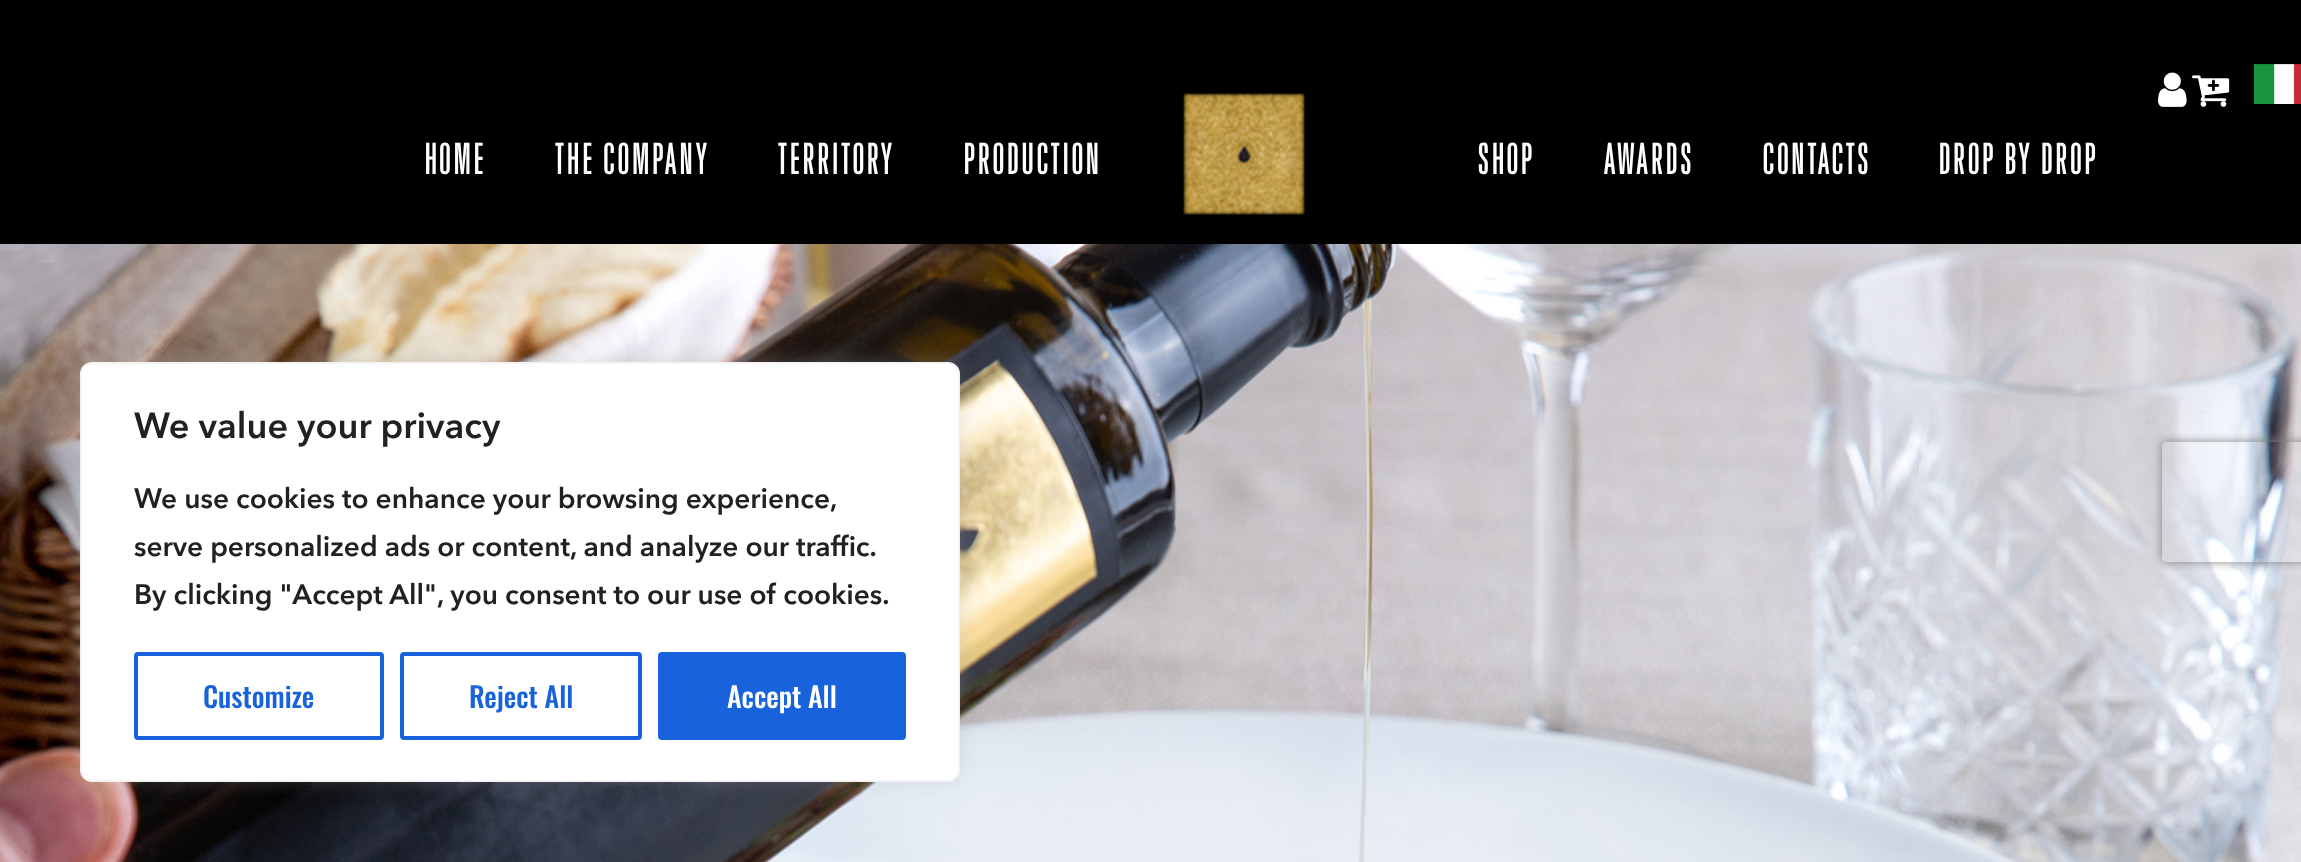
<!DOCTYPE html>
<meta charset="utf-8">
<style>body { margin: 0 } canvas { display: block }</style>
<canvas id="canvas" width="2301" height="862"></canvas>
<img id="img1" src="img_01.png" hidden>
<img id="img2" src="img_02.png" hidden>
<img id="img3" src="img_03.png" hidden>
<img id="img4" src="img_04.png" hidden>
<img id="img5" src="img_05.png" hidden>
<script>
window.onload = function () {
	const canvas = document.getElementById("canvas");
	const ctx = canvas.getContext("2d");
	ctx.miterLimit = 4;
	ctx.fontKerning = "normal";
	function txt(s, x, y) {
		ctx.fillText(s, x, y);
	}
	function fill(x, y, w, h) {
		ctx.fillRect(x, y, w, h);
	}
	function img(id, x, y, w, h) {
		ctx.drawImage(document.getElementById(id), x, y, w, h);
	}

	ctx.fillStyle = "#FFFFFF";
	fill(0, 0, 2301, 862);
	ctx.fillStyle = "#000000";
	fill(0, 0, 2301, 244);
	img("img1", 2158, 72, 29, 35);
	img("img2", 2192, 75, 38, 32);
	img("img3", 2254, 64, 47, 40);
	img("img4", 1183, 93, 122, 122);
	img("img5", 0, 244, 2301, 618);
	ctx.fillStyle = "rgba(172, 171, 171, 0.3)";
	ctx.filter = "blur(10px)";
	ctx.beginPath();
	ctx.roundRect(80, 360, 880, 420, 12);
	ctx.fill();
	ctx.filter = "none";
	ctx.fillStyle = "#FFFFFF";
	ctx.beginPath();
	ctx.roundRect(81, 363, 878, 418, 11);
	ctx.fill();
	ctx.strokeStyle = "#F4F4F4";
	ctx.lineWidth = 2;
	ctx.stroke();
	ctx.beginPath();
	ctx.roundRect(136, 654, 246, 84, 2);
	ctx.strokeStyle = "#1863DC";
	ctx.lineWidth = 4;
	ctx.stroke();
	ctx.beginPath();
	ctx.roundRect(402, 654, 238, 84, 2);
	ctx.stroke();
	ctx.fillStyle = "#1863DC";
	ctx.beginPath();
	ctx.roundRect(660, 654, 244, 84, 2);
	ctx.fill();
	ctx.stroke();
	ctx.save();
	ctx.beginPath();
	ctx.moveTo(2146, 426);
	ctx.lineTo(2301, 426);
	ctx.lineTo(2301, 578);
	ctx.lineTo(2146, 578);
	ctx.closePath();
	ctx.moveTo(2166, 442);
	ctx.lineTo(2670, 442);
	ctx.bezierCurveTo(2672, 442, 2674, 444, 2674, 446);
	ctx.lineTo(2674, 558);
	ctx.bezierCurveTo(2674, 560, 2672, 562, 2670, 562);
	ctx.lineTo(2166, 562);
	ctx.bezierCurveTo(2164, 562, 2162, 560, 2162, 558);
	ctx.lineTo(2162, 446);
	ctx.bezierCurveTo(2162, 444, 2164, 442, 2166, 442);
	ctx.closePath();
	ctx.clip("evenodd");
	ctx.fillStyle = "#808080";
	ctx.filter = "blur(5px)";
	ctx.beginPath();
	ctx.roundRect(2162, 442, 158, 120, 4);
	ctx.fill();
	ctx.filter = "none";
	ctx.restore();
	ctx.letterSpacing = "2px";
	ctx.font = "500 40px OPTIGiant";
	ctx.fillStyle = "#FFFFFF";
	txt("HOME", 425, 174);
	txt("THE COMPANY", 555, 174);
	txt("TERRITORY", 778, 174);
	txt("PRODUCTION", 964, 174);
	txt("SHOP", 1478, 174);
	txt("AWARDS", 1604, 174);
	txt("CONTACTS", 1763, 174);
	txt("DROP BY DROP", 1939, 174);
	ctx.letterSpacing = "0px";
	ctx.font = "600 36px Avenir Next";
	ctx.fillStyle = "#212121";
	txt("We value your privacy", 134, 438);
	ctx.font = "600 28px Avenir Next";
	txt("We use cookies to enhance your browsing experience,", 134, 508);
	txt("serve personalized ads or content, and analyze our traffic.", 134, 556);
	txt("By clicking \"Accept All\", you consent to our use of cookies.", 134, 604);
	ctx.font = "500 28px Oswald";
	ctx.fillStyle = "#1863DC";
	txt("Customize", 203, 708);
	txt("Reject All", 469, 708);
	ctx.fillStyle = "#FFFFFF";
	txt("Accept All", 727, 708);
};
</script>
